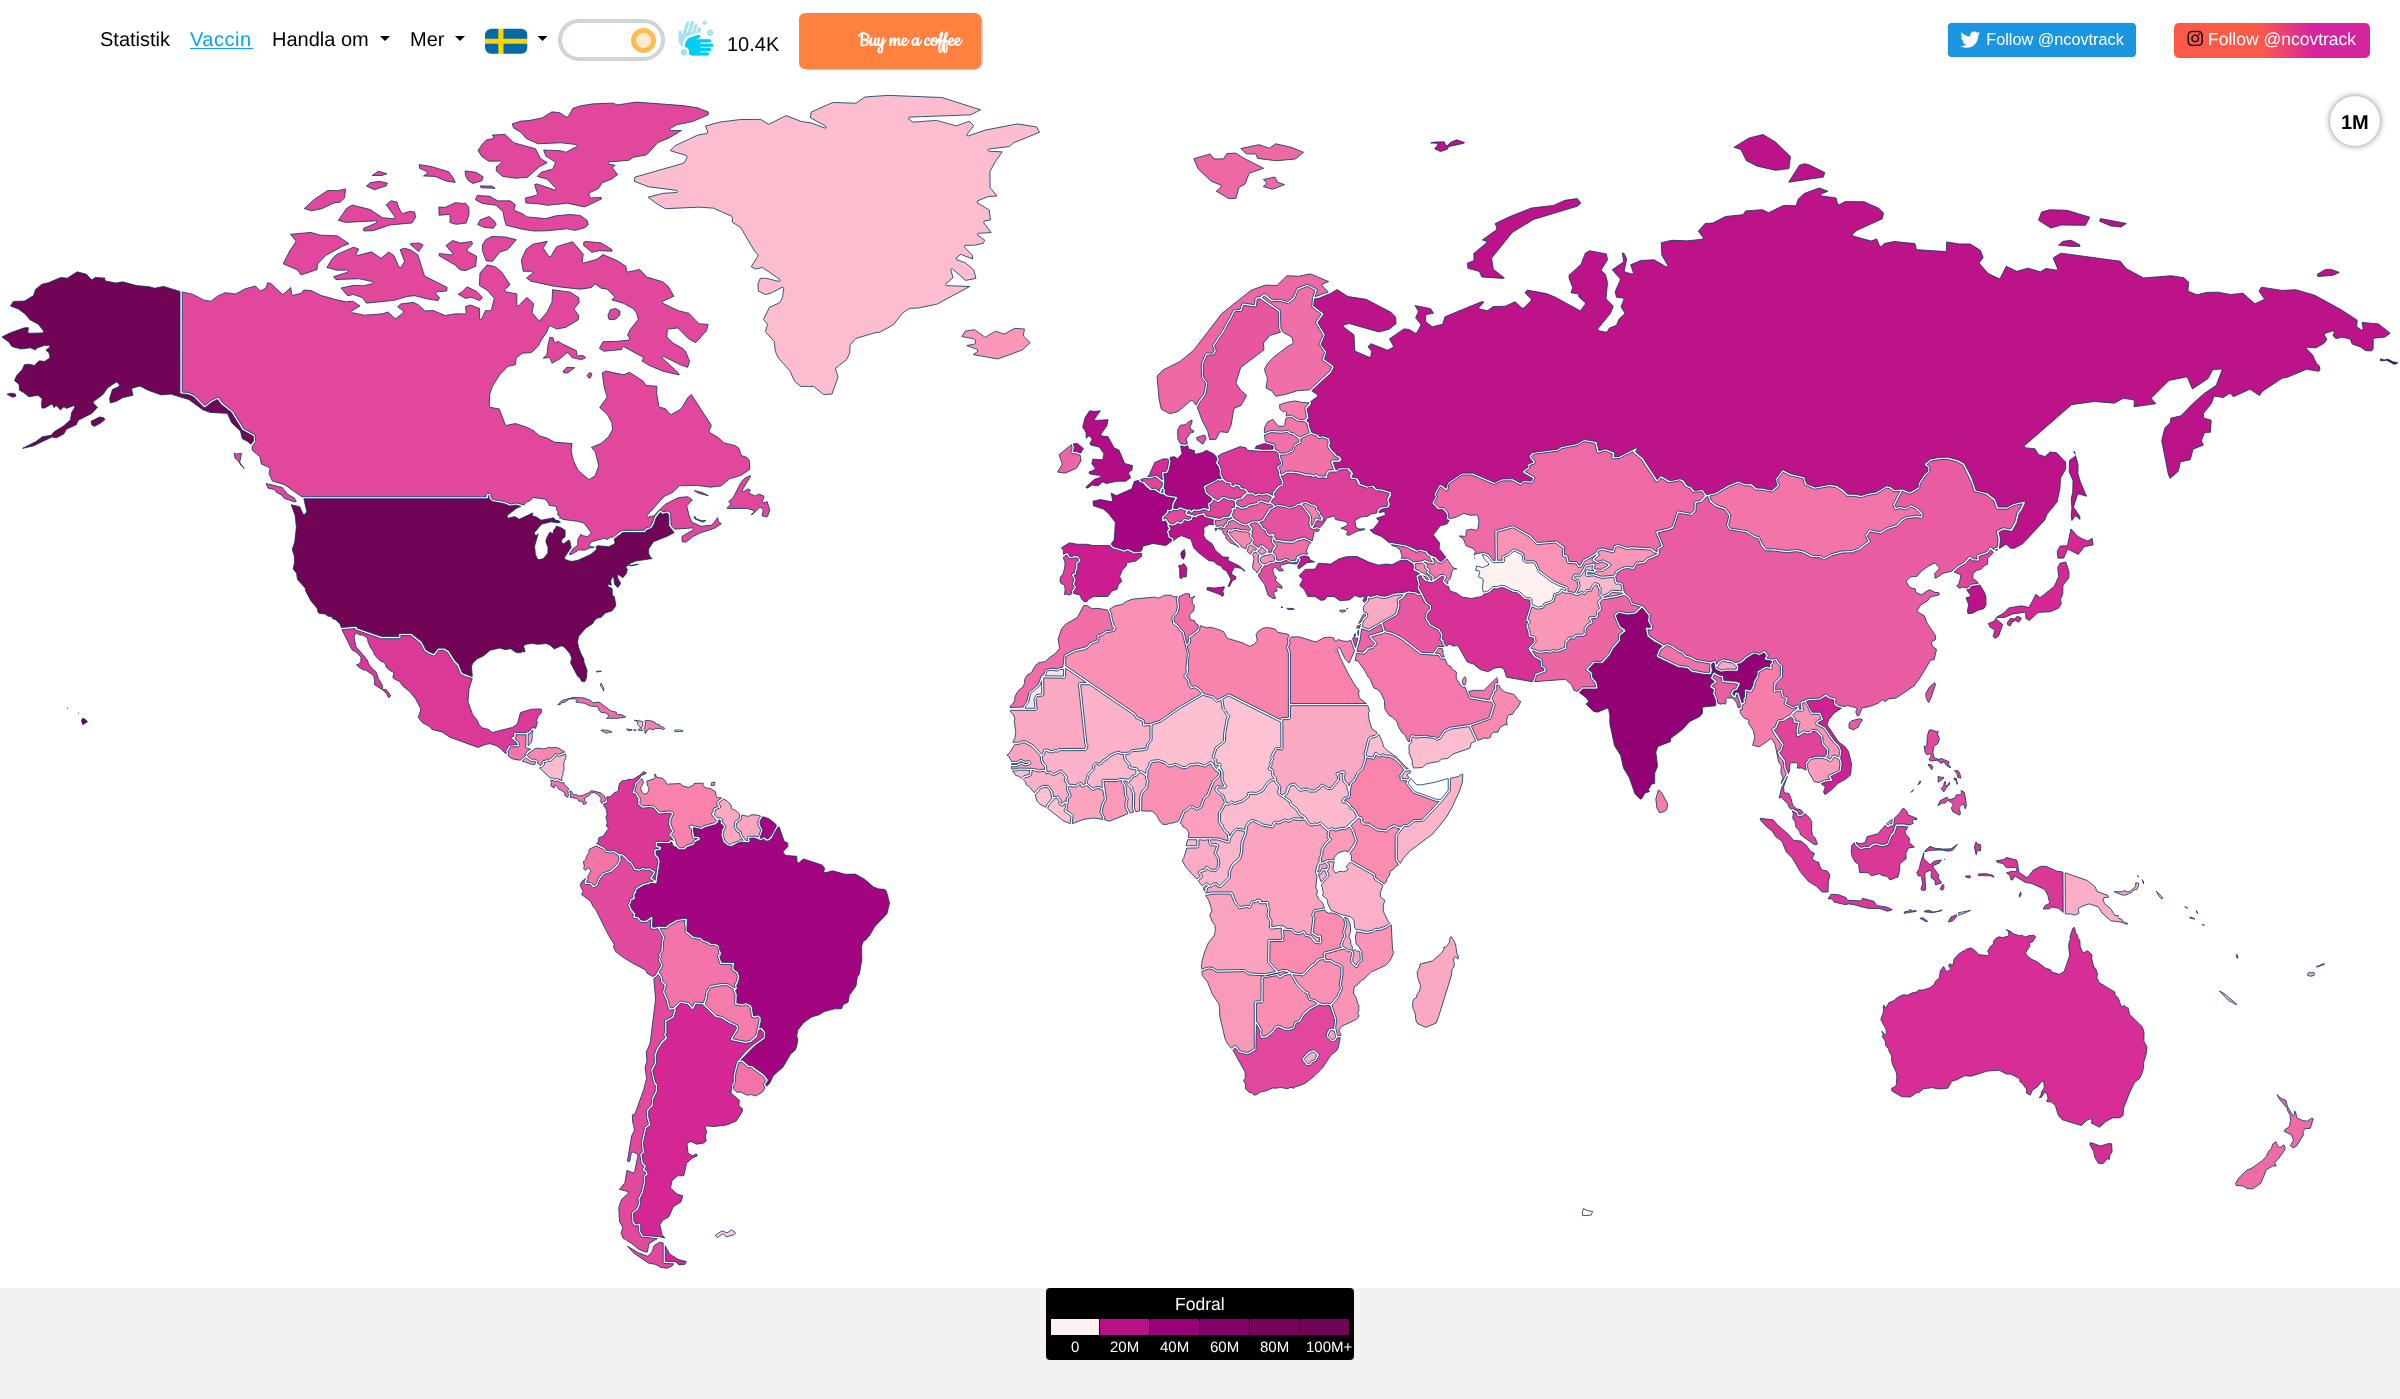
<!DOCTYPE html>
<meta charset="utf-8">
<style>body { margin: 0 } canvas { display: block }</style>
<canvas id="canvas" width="2400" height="1399"></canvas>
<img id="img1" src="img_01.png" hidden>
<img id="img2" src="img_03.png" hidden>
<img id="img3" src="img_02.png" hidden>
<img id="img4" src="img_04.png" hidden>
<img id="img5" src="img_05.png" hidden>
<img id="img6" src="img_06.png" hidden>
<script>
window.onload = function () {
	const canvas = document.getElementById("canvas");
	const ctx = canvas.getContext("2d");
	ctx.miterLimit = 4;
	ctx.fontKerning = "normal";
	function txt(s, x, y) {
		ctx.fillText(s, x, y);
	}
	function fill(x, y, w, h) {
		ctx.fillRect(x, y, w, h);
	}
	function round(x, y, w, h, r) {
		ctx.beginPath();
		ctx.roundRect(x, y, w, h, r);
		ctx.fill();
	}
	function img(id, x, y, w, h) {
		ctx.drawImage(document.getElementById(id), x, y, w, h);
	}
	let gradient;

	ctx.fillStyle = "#F1F1F1";
	fill(0, 0, 2400, 1399);
	ctx.fillStyle = "#FFFFFF";
	fill(0, 0, 2400, 1288);
	ctx.fillStyle = "#05A2FE";
	fill(190, 48, 63, 1);
	ctx.fillStyle = "#000000";
	ctx.beginPath();
	ctx.moveTo(380, 36);
	ctx.lineTo(390, 36);
	ctx.lineTo(385, 41);
	ctx.closePath();
	ctx.fill();
	ctx.beginPath();
	ctx.moveTo(455, 36);
	ctx.lineTo(465, 36);
	ctx.lineTo(460, 41);
	ctx.closePath();
	ctx.fill();
	img("img1", 485, 28, 43, 26);
	ctx.beginPath();
	ctx.moveTo(537.5, 36);
	ctx.lineTo(547.5, 36);
	ctx.lineTo(542.5, 41);
	ctx.closePath();
	ctx.fill();
	ctx.beginPath();
	ctx.roundRect(560, 21, 103, 38, 19);
	ctx.strokeStyle = "#CED4DA";
	ctx.lineWidth = 4;
	ctx.stroke();
	ctx.fillStyle = "#FFECCF";
	ctx.beginPath();
	ctx.arc(643.5, 40.5, 10, 0, Math.PI * 2);
	ctx.fill();
	ctx.strokeStyle = "#FFBB52";
	ctx.lineWidth = 5;
	ctx.stroke();
	img("img2", 685, 34, 29, 22);
	img("img3", 678, 20, 36, 36);
	ctx.fillStyle = "#CCCCCC";
	ctx.beginPath();
	ctx.moveTo(802, 67);
	ctx.bezierCurveTo(804, 69, 806, 70, 809, 70);
	ctx.lineTo(974, 70);
	ctx.bezierCurveTo(979, 70, 983, 66, 983, 61);
	ctx.lineTo(983, 23);
	ctx.bezierCurveTo(983, 20, 982, 17, 979, 16);
	ctx.bezierCurveTo(981, 17, 981, 19, 981, 21);
	ctx.lineTo(981, 60);
	ctx.bezierCurveTo(981, 65, 977, 69, 972, 69);
	ctx.lineTo(808, 69);
	ctx.bezierCurveTo(806, 69, 804, 68, 802, 67);
	ctx.closePath();
	ctx.fill();
	ctx.fillStyle = "#FF813F";
	round(799, 13, 182, 56, 6);
	img("img4", 1947, 22, 190, 36);
	gradient = ctx.createRadialGradient(2174, 60, 0, 2174, 60, 200);
	gradient.addColorStop(0.45, "#FD5949");
	gradient.addColorStop(0.7, "#D6249F");
	ctx.fillStyle = gradient;
	round(2174, 23, 196, 35, 5);
	img("img5", 2187, 30, 16, 17);
	img("img6", 1, 94, 2397, 1175);
	ctx.fillStyle = "rgba(0, 0, 0, 0.5)";
	ctx.filter = "blur(3px)";
	ctx.beginPath();
	ctx.roundRect(2330, 96, 50, 50, 25);
	ctx.fill();
	ctx.filter = "none";
	ctx.fillStyle = "#FFFFFF";
	ctx.beginPath();
	ctx.arc(2355, 121, 25, 0, Math.PI * 2);
	ctx.fill();
	ctx.fillStyle = "#000000";
	round(1046, 1288, 308, 72, 4);
	ctx.fillStyle = "#FEF1EF";
	fill(1051, 1319, 48, 16);
	ctx.fillStyle = "#B81187";
	fill(1100, 1319, 49, 16);
	ctx.fillStyle = "#980078";
	fill(1150, 1319, 49, 16);
	ctx.fillStyle = "#840267";
	fill(1200, 1319, 49, 16);
	ctx.fillStyle = "#760459";
	fill(1250, 1319, 49, 16);
	ctx.fillStyle = "#720456";
	fill(1300, 1319, 49, 16);
	ctx.font = "20px Liberation Sans";
	ctx.fillStyle = "#000000";
	txt("Statistik", 100, 46);
	ctx.letterSpacing = "0.5px";
	ctx.fillStyle = "#05A2FE";
	txt("Vaccin", 190, 46);
	ctx.letterSpacing = "0px";
	ctx.fillStyle = "#000000";
	txt("Handla om", 272, 46);
	txt("Mer", 410, 46);
	txt("10.4K", 727, 51);
	ctx.letterSpacing = "-0.25px";
	ctx.font = "bold 22.5px Cookie";
	ctx.fillStyle = "#FFFFFF";
	txt("Buy me a coffee", 858, 46);
	ctx.letterSpacing = "0px";
	ctx.font = "17.5px Liberation Sans";
	txt("Follow @ncovtrack", 2208, 45);
	ctx.font = "bold 20px Liberation Sans";
	ctx.fillStyle = "#000000";
	txt("1M", 2341, 129);
	ctx.font = "17.5px Liberation Sans";
	ctx.fillStyle = "#FFFFFF";
	txt("Fodral", 1175, 1310);
	ctx.font = "15px Liberation Sans";
	txt("0", 1071, 1352);
	txt("20M", 1110, 1352);
	txt("40M", 1160, 1352);
	txt("60M", 1210, 1352);
	txt("80M", 1260, 1352);
	txt("100M+", 1306, 1352);
};
</script>
